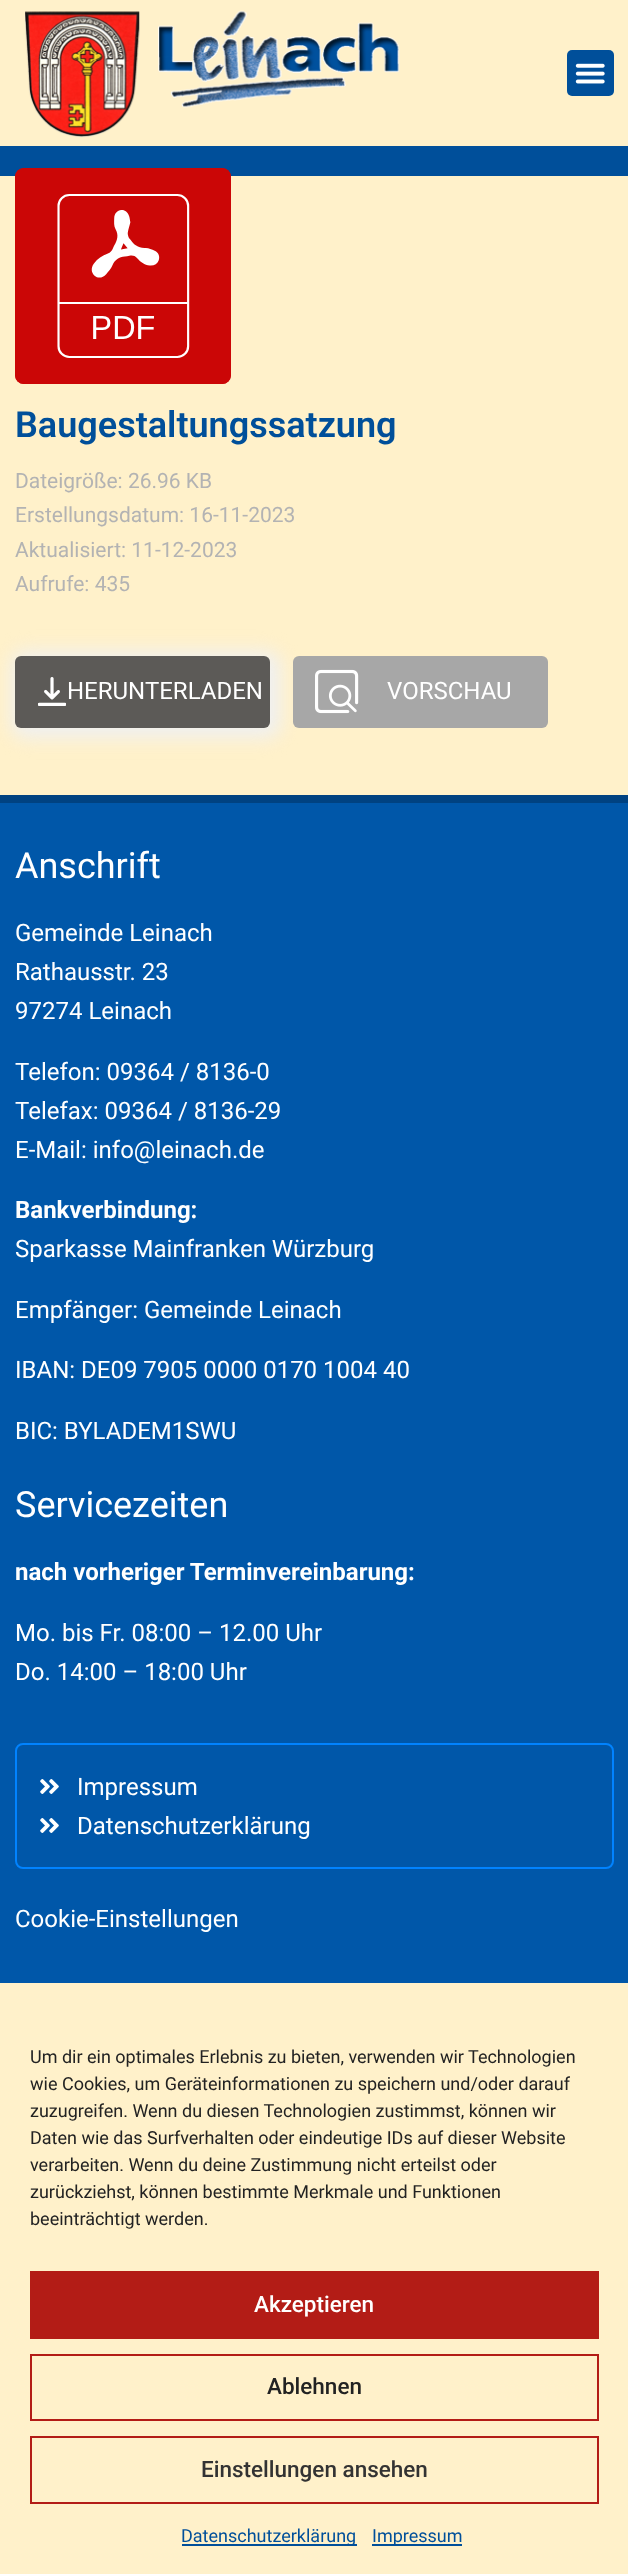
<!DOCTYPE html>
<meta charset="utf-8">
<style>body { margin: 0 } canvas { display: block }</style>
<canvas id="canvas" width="628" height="2574"></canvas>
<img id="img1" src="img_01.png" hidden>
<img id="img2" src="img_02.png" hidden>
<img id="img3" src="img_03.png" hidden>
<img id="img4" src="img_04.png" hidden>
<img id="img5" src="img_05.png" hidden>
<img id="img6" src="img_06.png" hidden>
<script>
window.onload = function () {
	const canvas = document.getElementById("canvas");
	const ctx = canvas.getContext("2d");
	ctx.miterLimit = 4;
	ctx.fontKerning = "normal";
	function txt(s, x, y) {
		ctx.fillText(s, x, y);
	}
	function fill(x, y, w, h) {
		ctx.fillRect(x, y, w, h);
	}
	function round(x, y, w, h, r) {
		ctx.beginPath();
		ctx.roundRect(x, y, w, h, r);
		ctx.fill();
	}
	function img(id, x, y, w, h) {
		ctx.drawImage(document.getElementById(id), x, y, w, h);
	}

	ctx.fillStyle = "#FFF1CA";
	fill(0, 0, 628, 2574);
	img("img1", 25, 10, 375, 128);
	ctx.fillStyle = "#004F9A";
	round(567, 50, 47, 46, 5);
	img("img2", 575, 63, 30, 21);
	fill(0, 146, 628, 30);
	ctx.fillStyle = "#CB0606";
	round(15, 168, 216, 216, 9);
	img("img3", 15, 168, 216, 216);
	ctx.fillStyle = "#F0F0F0";
	ctx.filter = "blur(9px)";
	ctx.beginPath();
	ctx.roundRect(11, 651, 270, 87, 14);
	ctx.fill();
	ctx.filter = "none";
	ctx.fillStyle = "#5C5A57";
	round(15, 656, 255, 72, 6);
	img("img4", 38, 677, 28, 29);
	ctx.fillStyle = "#A7A7A7";
	round(293, 656, 255, 72, 6);
	img("img5", 315, 669, 44, 45);
	ctx.fillStyle = "#0057A9";
	fill(0, 803, 628, 1180);
	ctx.fillStyle = "#004281";
	fill(0, 795, 628, 8);
	ctx.beginPath();
	ctx.roundRect(16, 1744, 597, 124, 7);
	ctx.strokeStyle = "#0183FF";
	ctx.lineWidth = 2;
	ctx.stroke();
	img("img6", 40, 1779, 19, 15);
	img("img6", 40, 1818, 19, 15);
	ctx.fillStyle = "#B31C16";
	fill(30, 2271, 569, 68);
	ctx.strokeStyle = "#B31C16";
	ctx.strokeRect(31, 2355, 567, 65);
	ctx.strokeRect(31, 2437, 567, 66);
	ctx.fillStyle = "#004F9A";
	fill(182, 2544, 175, 2);
	fill(372, 2544, 90, 2);
	ctx.font = "600 36px Roboto";
	txt("Baugestaltungssatzung", 15, 437);
	ctx.font = "21px Roboto";
	ctx.fillStyle = "#B3B3B3";
	txt("Dateigröße: 26.96 KB", 15, 488);
	txt("Erstellungsdatum: 16-11-2023", 15, 522);
	txt("Aktualisiert: 11-12-2023", 15, 557);
	txt("Aufrufe: 435", 15, 591);
	ctx.font = "24px Roboto";
	ctx.fillStyle = "#FFFFFF";
	txt("HERUNTERLADEN", 67, 699);
	txt("VORSCHAU", 387, 699);
	ctx.font = "36px Roboto";
	txt("Anschrift", 15, 878);
	ctx.font = "24px Roboto";
	txt("Gemeinde Leinach", 15, 941);
	txt("Rathausstr. 23", 15, 980);
	txt("97274 Leinach", 15, 1019);
	txt("Telefon: 09364 / 8136-0", 15, 1080);
	txt("Telefax: 09364 / 8136-29", 15, 1119);
	txt("E-Mail: info@leinach.de", 15, 1158);
	ctx.font = "bold 24px Roboto";
	txt("Bankverbindung:", 15, 1218);
	ctx.font = "24px Roboto";
	txt("Sparkasse Mainfranken Würzburg", 15, 1257);
	txt("Empfänger: Gemeinde Leinach", 15, 1318);
	txt("IBAN: DE09 7905 0000 0170 1004 40", 15, 1378);
	txt("BIC: BYLADEM1SWU", 15, 1439);
	ctx.font = "36px Roboto";
	txt("Servicezeiten", 15, 1517);
	ctx.font = "bold 24px Roboto";
	txt("nach vorheriger Terminvereinbarung:", 15, 1580);
	ctx.font = "24px Roboto";
	txt("Mo. bis Fr. 08:00 – 12.00 Uhr", 15, 1641);
	txt("Do. 14:00 – 18:00 Uhr", 15, 1680);
	txt("Impressum", 77, 1795);
	txt("Datenschutzerklärung", 77, 1834);
	txt("Cookie-Einstellungen", 15, 1927);
	ctx.font = "18px Roboto";
	ctx.fillStyle = "#222222";
	txt("Um dir ein optimales Erlebnis zu bieten, verwenden wir Technologien", 30, 2063);
	txt("wie Cookies, um Geräteinformationen zu speichern und/oder darauf", 30, 2090);
	txt("zuzugreifen. Wenn du diesen Technologien zustimmst, können wir", 30, 2117);
	txt("Daten wie das Surfverhalten oder eindeutige IDs auf dieser Website", 30, 2144);
	txt("verarbeiten. Wenn du deine Zustimmung nicht erteilst oder", 30, 2171);
	txt("zurückziehst, können bestimmte Merkmale und Funktionen", 30, 2198);
	txt("beeinträchtigt werden.", 30, 2225);
	ctx.font = "500 22.5px Roboto";
	ctx.fillStyle = "#FFFFFF";
	txt("Akzeptieren", 254, 2312);
	ctx.fillStyle = "#222222";
	txt("Ablehnen", 267, 2394);
	ctx.fillStyle = "#333333";
	txt("Einstellungen ansehen", 201, 2477);
	ctx.font = "18px Roboto";
	ctx.fillStyle = "#004F9A";
	txt("Datenschutzerklärung", 181, 2542);
	txt("Impressum", 372, 2542);
};
</script>
